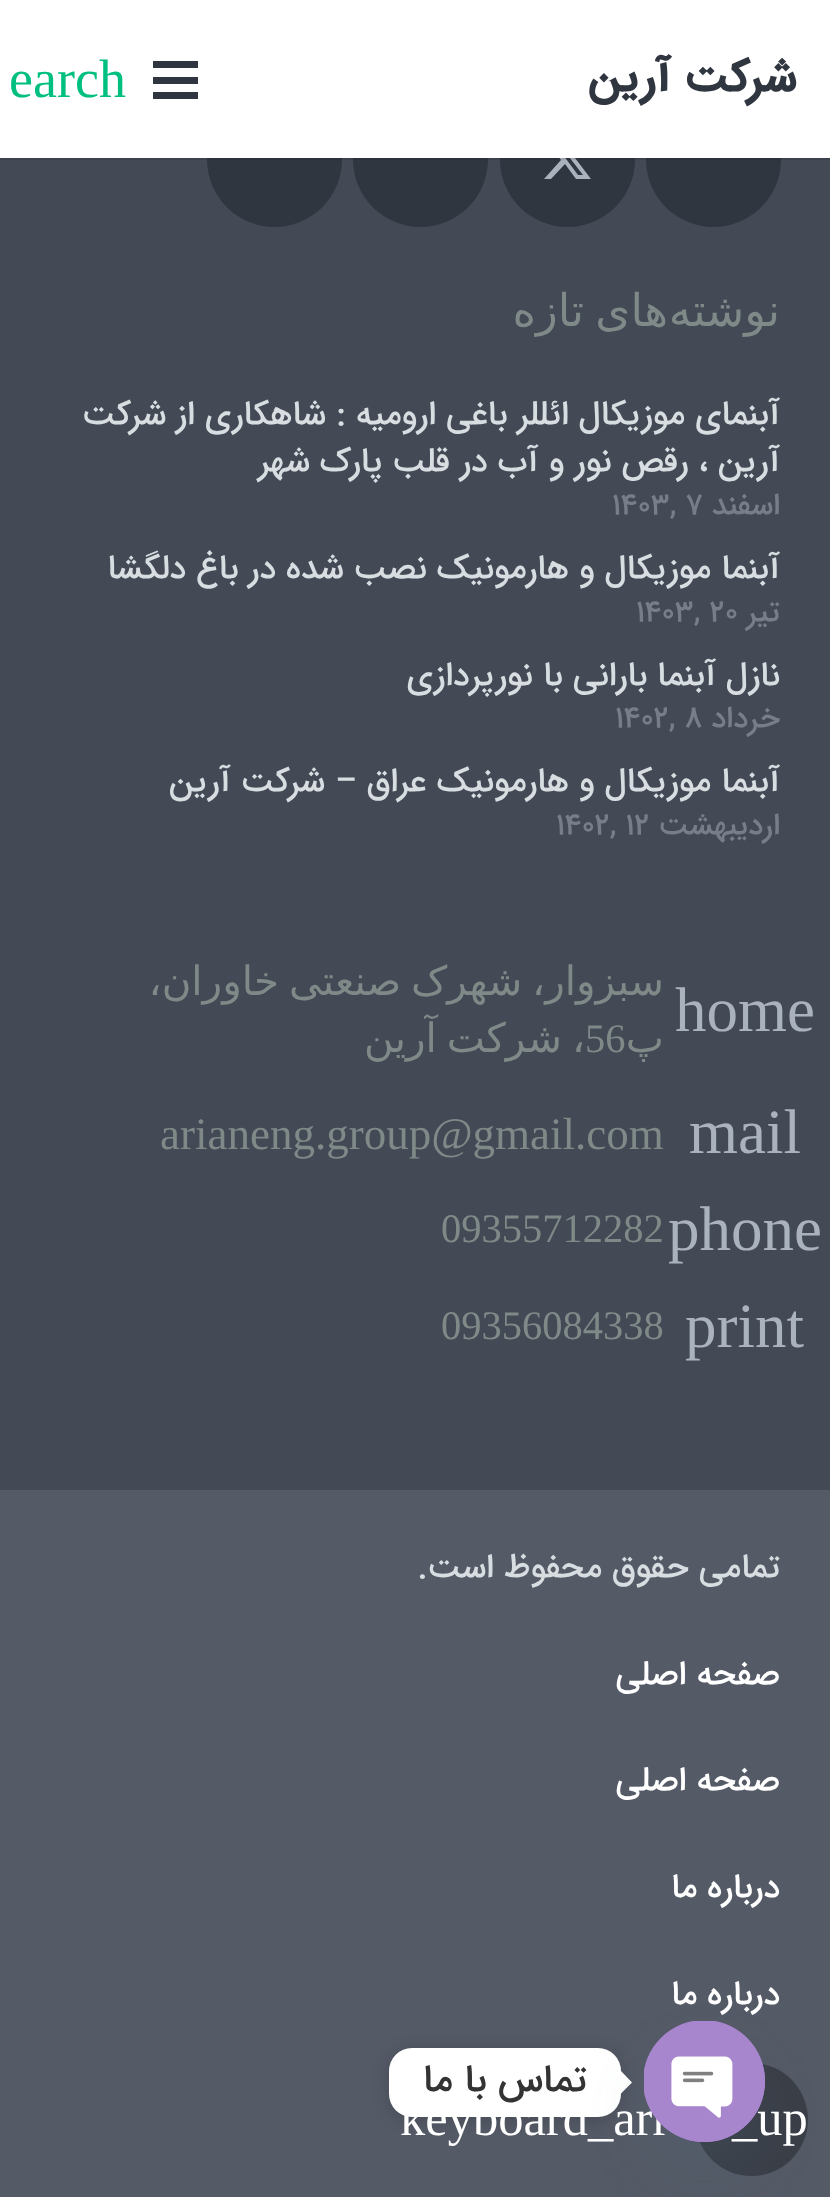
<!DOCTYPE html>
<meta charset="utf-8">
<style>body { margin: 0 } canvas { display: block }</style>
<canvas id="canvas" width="830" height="2197"></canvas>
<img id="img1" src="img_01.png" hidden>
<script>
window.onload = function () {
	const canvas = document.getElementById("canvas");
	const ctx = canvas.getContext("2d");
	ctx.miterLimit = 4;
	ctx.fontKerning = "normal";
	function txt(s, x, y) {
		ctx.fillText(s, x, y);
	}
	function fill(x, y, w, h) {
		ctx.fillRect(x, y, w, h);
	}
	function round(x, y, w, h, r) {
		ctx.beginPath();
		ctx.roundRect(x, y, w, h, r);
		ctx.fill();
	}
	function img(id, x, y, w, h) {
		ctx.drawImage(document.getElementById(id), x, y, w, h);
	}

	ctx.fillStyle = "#434955";
	fill(0, 0, 830, 2197);
	ctx.fillStyle = "#303640";
	ctx.beginPath();
	ctx.arc(713.5, 159.5, 67.5, 0, Math.PI * 2);
	ctx.fill();
	ctx.beginPath();
	ctx.arc(567.5, 159.5, 67.5, 0, Math.PI * 2);
	ctx.fill();
	ctx.fillStyle = "#AAB2BD";
	ctx.beginPath();
	ctx.moveTo(581, 136);
	ctx.lineTo(588, 136);
	ctx.lineTo(572, 154);
	ctx.lineTo(591, 179);
	ctx.lineTo(576, 179);
	ctx.lineTo(565, 164);
	ctx.lineTo(551, 179);
	ctx.lineTo(544, 179);
	ctx.lineTo(561, 160);
	ctx.lineTo(543, 136);
	ctx.lineTo(558, 136);
	ctx.lineTo(569, 150);
	ctx.closePath();
	ctx.moveTo(578, 175);
	ctx.lineTo(583, 175);
	ctx.lineTo(556, 140);
	ctx.lineTo(552, 140);
	ctx.closePath();
	ctx.fill();
	ctx.fillStyle = "#303640";
	ctx.beginPath();
	ctx.arc(420.5, 159.5, 67.5, 0, Math.PI * 2);
	ctx.fill();
	ctx.beginPath();
	ctx.arc(274.5, 159.5, 67.5, 0, Math.PI * 2);
	ctx.fill();
	ctx.fillStyle = "rgba(0, 0, 0, 0.08)";
	fill(0, 158, 830, 2);
	ctx.fillStyle = "#FFFFFF";
	fill(0, 0, 830, 158);
	ctx.fillStyle = "#303640";
	fill(153, 77, 45, 7);
	fill(153, 61, 45, 7);
	fill(153, 92, 45, 7);
	ctx.fillStyle = "#545A66";
	fill(0, 1490, 830, 707);
	ctx.save();
	ctx.beginPath();
	ctx.moveTo(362, 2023);
	ctx.lineTo(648, 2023);
	ctx.lineTo(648, 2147);
	ctx.lineTo(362, 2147);
	ctx.closePath();
	ctx.moveTo(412, 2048);
	ctx.lineTo(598, 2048);
	ctx.bezierCurveTo(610.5, 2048, 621, 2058.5, 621, 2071);
	ctx.lineTo(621, 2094);
	ctx.bezierCurveTo(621, 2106.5, 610.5, 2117, 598, 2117);
	ctx.lineTo(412, 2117);
	ctx.bezierCurveTo(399.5, 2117, 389, 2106.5, 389, 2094);
	ctx.lineTo(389, 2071);
	ctx.bezierCurveTo(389, 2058.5, 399.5, 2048, 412, 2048);
	ctx.closePath();
	ctx.clip("evenodd");
	ctx.fillStyle = "rgba(0, 0, 0, 0.15)";
	ctx.filter = "blur(8.5px)";
	ctx.beginPath();
	ctx.roundRect(389, 2050, 232, 70, 23);
	ctx.fill();
	ctx.filter = "none";
	ctx.restore();
	ctx.fillStyle = "#FFFFFF";
	round(389, 2048, 232, 69, 23);
	ctx.beginPath();
	ctx.moveTo(621, 2093.5);
	ctx.lineTo(621, 2071);
	ctx.lineTo(632, 2082.5);
	ctx.closePath();
	ctx.fill();
	ctx.fillStyle = "rgba(0, 0, 0, 0.3)";
	ctx.beginPath();
	ctx.arc(751.5, 2119.5, 56.5, 0, Math.PI * 2);
	ctx.fill();
	ctx.fillStyle = "rgba(73, 104, 126, 0.16)";
	ctx.filter = "blur(27px)";
	ctx.beginPath();
	ctx.roundRect(644, 2057, 121, 121, 60.5);
	ctx.fill();
	ctx.filter = "none";
	ctx.direction = "rtl";
	ctx.font = "bold 45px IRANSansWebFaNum";
	ctx.fillStyle = "#303640";
	txt("شرکت آرین", 796, 91);
	ctx.direction = "ltr";
	ctx.font = "54px Liberation Serif";
	ctx.fillStyle = "#00BF80";
	txt("earch", 9, 97);
	ctx.direction = "rtl";
	ctx.font = "45px DejaVu Sans";
	ctx.fillStyle = "#7F8A88";
	txt("نوشته", 780, 326);
	ctx.wordSpacing = "-3px";
	txt("های تازه", 668, 326);
	ctx.wordSpacing = "0px";
	ctx.font = "500 33.75px IRANSansWebFaNum";
	ctx.fillStyle = "#D7DDE0";
	txt("آبنمای موزیکال ائللر باغی ارومیه : شاهکاری از شرکت", 780, 424);
	txt("آرین ، رقص نور و آب در قلب پارک شهر", 780, 471);
	ctx.font = "500 30.5px IRANSansWebFaNum";
	ctx.fillStyle = "#777E89";
	txt("اسفند", 780, 514);
	ctx.direction = "ltr";
	txt("1403, 7", 612, 514);
	ctx.direction = "rtl";
	ctx.font = "500 33.75px IRANSansWebFaNum";
	ctx.fillStyle = "#D7DDE0";
	txt("آبنما موزیکال و هارمونیک نصب شده در باغ دلگشا", 780, 578);
	ctx.font = "500 30.5px IRANSansWebFaNum";
	ctx.fillStyle = "#777E89";
	txt("تیر", 780, 621);
	ctx.direction = "ltr";
	txt("1403, 20", 636, 621);
	ctx.direction = "rtl";
	ctx.font = "500 33.75px IRANSansWebFaNum";
	ctx.fillStyle = "#D7DDE0";
	txt("نازل آبنما بارانی با نورپردازی", 780, 685);
	ctx.font = "500 30.5px IRANSansWebFaNum";
	ctx.fillStyle = "#777E89";
	txt("خرداد", 780, 727);
	ctx.direction = "ltr";
	txt("1402, 8", 615, 727);
	ctx.direction = "rtl";
	ctx.font = "500 33.75px IRANSansWebFaNum";
	ctx.fillStyle = "#D7DDE0";
	txt("آبنما موزیکال و هارمونیک عراق – شرکت آرین", 780, 791);
	ctx.font = "500 30.5px IRANSansWebFaNum";
	ctx.fillStyle = "#777E89";
	txt("اردیبهشت", 780, 834);
	ctx.direction = "ltr";
	txt("1402, 12", 556, 834);
	ctx.font = "63px Liberation Serif";
	ctx.fillStyle = "#AAB2BD";
	txt("home", 675, 1031);
	ctx.wordSpacing = "-3px";
	ctx.direction = "rtl";
	ctx.font = "40.5px DejaVu Sans";
	ctx.fillStyle = "#7F8A88";
	txt("سبزوار، شهرک صنعتی خاوران،", 664, 995);
	ctx.wordSpacing = "0px";
	txt("پ", 664, 1052);
	ctx.wordSpacing = "-3px";
	txt("، شرکت آرین", 585, 1052);
	ctx.wordSpacing = "0px";
	ctx.direction = "ltr";
	ctx.font = "40.5px Liberation Serif";
	txt("56", 585, 1052);
	ctx.font = "63px Liberation Serif";
	ctx.fillStyle = "#AAB2BD";
	txt("mail", 689, 1153);
	ctx.font = "45px Liberation Serif";
	ctx.fillStyle = "#7F8A88";
	txt("arianeng.group@gmail.com", 160, 1149);
	ctx.font = "63px Liberation Serif";
	ctx.fillStyle = "#AAB2BD";
	txt("phone", 668, 1250);
	ctx.font = "40.5px Liberation Serif";
	ctx.fillStyle = "#7F8A88";
	txt("09355712282", 441, 1242);
	ctx.font = "63px Liberation Serif";
	ctx.fillStyle = "#AAB2BD";
	txt("print", 685, 1347);
	ctx.font = "40.5px Liberation Serif";
	ctx.fillStyle = "#7F8A88";
	txt("09356084338", 441, 1339);
	ctx.direction = "rtl";
	ctx.font = "500 33.75px IRANSansWebFaNum";
	ctx.fillStyle = "#D7DDE0";
	txt("تمامی حقوق محفوظ است.", 780, 1577);
	ctx.fillStyle = "#FFFFFF";
	txt("صفحه اصلی", 780, 1684);
	txt("صفحه اصلی", 780, 1790);
	txt("درباره ما", 780, 1897);
	txt("درباره ما", 780, 2004);
	ctx.font = "500 38.25px IRANSansWebFaNum";
	ctx.fillStyle = "#333333";
	txt("تماس با ما", 587, 2091);
	ctx.direction = "ltr";
	ctx.font = "50.5px Liberation Serif";
	ctx.fillStyle = "#FFFFFF";
	txt("_up", 732, 2135);
	txt("keyboard_arr", 400, 2135);
	ctx.fillStyle = "#A886CD";
	ctx.beginPath();
	ctx.arc(704.5, 2081.5, 60.5, 0, Math.PI * 2);
	ctx.fill();
	img("img1", 644, 2021, 121, 121);
};
</script>
